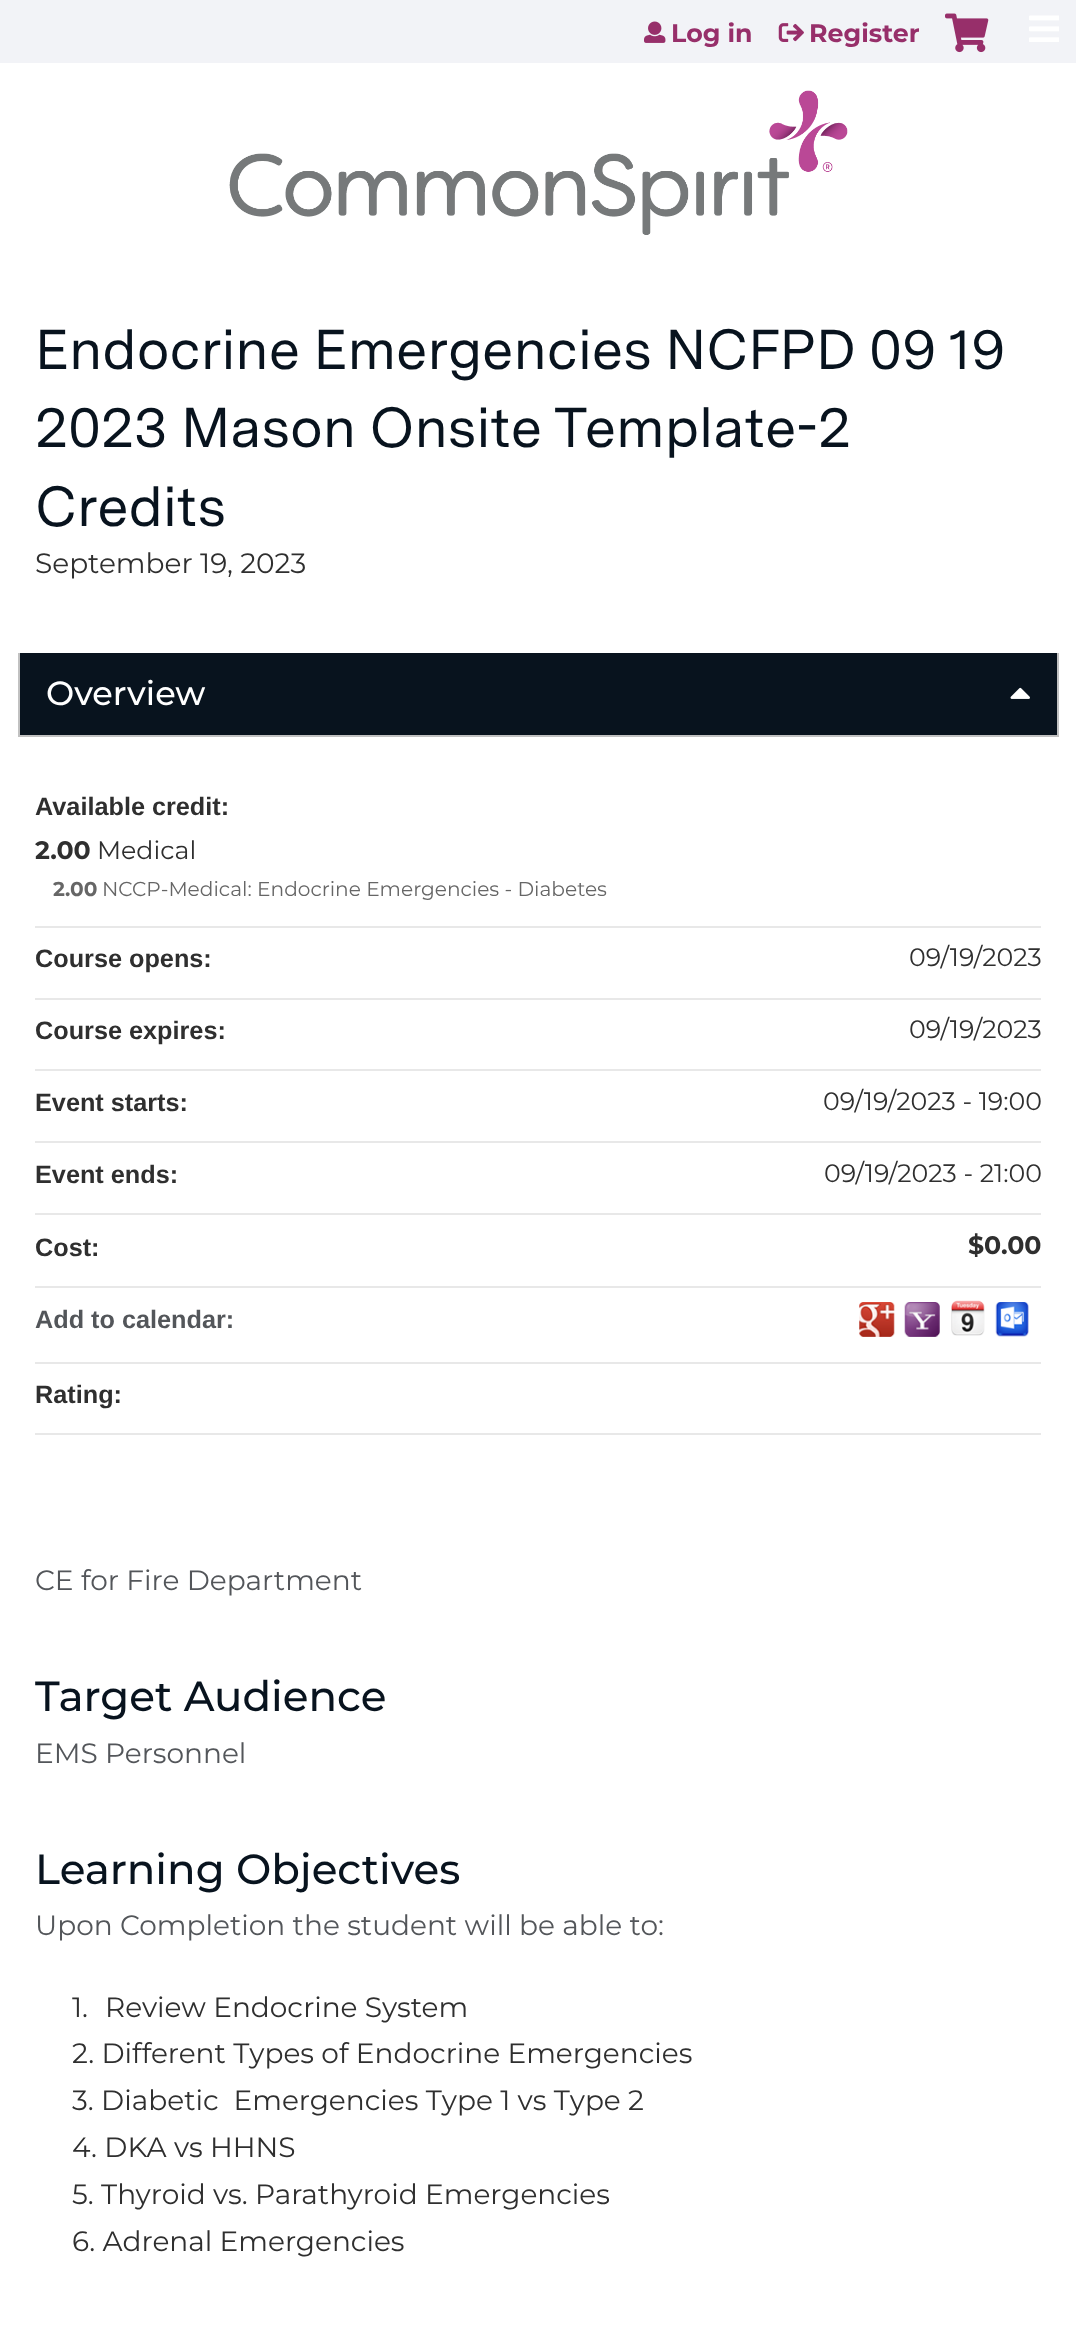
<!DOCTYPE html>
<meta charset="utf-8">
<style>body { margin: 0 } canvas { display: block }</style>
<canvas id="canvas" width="1076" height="2340"></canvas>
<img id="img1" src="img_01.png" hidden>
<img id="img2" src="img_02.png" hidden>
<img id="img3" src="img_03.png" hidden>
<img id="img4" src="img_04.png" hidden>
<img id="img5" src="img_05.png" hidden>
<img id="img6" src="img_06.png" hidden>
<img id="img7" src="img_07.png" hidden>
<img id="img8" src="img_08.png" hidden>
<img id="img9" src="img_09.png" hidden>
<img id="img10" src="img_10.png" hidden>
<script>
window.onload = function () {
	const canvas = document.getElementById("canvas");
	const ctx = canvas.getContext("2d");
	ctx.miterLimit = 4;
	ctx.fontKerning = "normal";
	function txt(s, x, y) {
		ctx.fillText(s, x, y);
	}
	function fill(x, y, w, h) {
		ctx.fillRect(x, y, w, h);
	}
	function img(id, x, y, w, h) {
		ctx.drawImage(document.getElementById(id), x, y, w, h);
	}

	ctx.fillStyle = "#FFFFFF";
	fill(0, 0, 1076, 2340);
	ctx.fillStyle = "#F2F3F7";
	fill(0, 0, 1076, 63);
	img("img1", 644, 21, 22, 22);
	img("img2", 778, 23, 26, 19);
	img("img3", 945, 13, 44, 40);
	img("img4", 1029, 15, 30, 27);
	img("img5", 229, 90, 619, 145);
	ctx.fillStyle = "#08131E";
	fill(20, 653, 1037, 82);
	ctx.fillStyle = "#C1C1C1";
	fill(1057, 653, 2, 84);
	fill(18, 735, 1041, 2);
	fill(18, 653, 2, 84);
	img("img6", 1010, 687, 20, 12);
	ctx.fillStyle = "#E8E8E8";
	fill(35, 926, 1006, 2);
	fill(35, 998, 1006, 2);
	fill(35, 1069, 1006, 2);
	fill(35, 1141, 1006, 2);
	fill(35, 1213, 1006, 2);
	fill(35, 1286, 1006, 2);
	fill(35, 1362, 1006, 2);
	img("img7", 859, 1302, 36, 35);
	img("img8", 904, 1302, 36, 35);
	img("img9", 951, 1300, 34, 36);
	img("img10", 995, 1302, 34, 35);
	fill(35, 1433, 1006, 2);
	ctx.font = "bold 25.25px Montserrat";
	ctx.fillStyle = "#972F6A";
	txt("Log in", 671, 42);
	txt("Register", 809, 42);
	ctx.font = "56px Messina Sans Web";
	ctx.fillStyle = "#08131E";
	txt("Endocrine Emergencies NCFPD 09 19", 35, 369);
	txt("2023 Mason Onsite Template-2", 35, 447);
	txt("Credits", 35, 526);
	ctx.font = "28px Montserrat";
	ctx.fillStyle = "#2F2F2F";
	txt("September 19, 2023", 35, 573);
	ctx.font = "500 33.5px Montserrat";
	ctx.fillStyle = "#FFFFFF";
	txt("Overview", 46, 705);
	ctx.font = "bold 25.25px Liberation Sans";
	ctx.fillStyle = "#2F2F2F";
	txt("Available credit:", 35, 815);
	ctx.font = "bold 25.25px Montserrat";
	txt("2.00", 35, 859);
	ctx.font = "25.25px Montserrat";
	txt("Medical", 97, 859);
	ctx.font = "bold 20.15px Montserrat";
	ctx.fillStyle = "#666666";
	txt("2.00", 53, 896);
	ctx.font = "20.15px Montserrat";
	txt("NCCP-Medical: Endocrine Emergencies - Diabetes", 102, 896);
	ctx.font = "bold 25.25px Liberation Sans";
	ctx.fillStyle = "#2F2F2F";
	txt("Course opens:", 35, 967);
	ctx.font = "25.25px Montserrat";
	txt("09/19/2023", 909, 966);
	ctx.font = "bold 25.25px Liberation Sans";
	txt("Course expires:", 35, 1039);
	ctx.font = "25.25px Montserrat";
	txt("09/19/2023", 909, 1038);
	ctx.font = "bold 25.25px Liberation Sans";
	txt("Event starts:", 35, 1111);
	ctx.font = "25.25px Montserrat";
	txt("09/19/2023 - 19:00", 823, 1110);
	ctx.font = "bold 25.25px Liberation Sans";
	txt("Event ends:", 35, 1183);
	ctx.font = "25.25px Montserrat";
	txt("09/19/2023 - 21:00", 824, 1182);
	ctx.font = "bold 25.25px Liberation Sans";
	txt("Cost:", 35, 1256);
	ctx.font = "bold 25.25px Montserrat";
	txt("$0.00", 968, 1254);
	ctx.font = "bold 25.25px Liberation Sans";
	ctx.fillStyle = "#53565A";
	txt("Add to calendar:", 35, 1328);
	ctx.fillStyle = "#2F2F2F";
	txt("Rating:", 35, 1403);
	ctx.font = "28px Montserrat";
	ctx.fillStyle = "#53565A";
	txt("CE for Fire Department", 35, 1590);
	ctx.font = "500 42px Montserrat";
	ctx.fillStyle = "#08131E";
	txt("Target Audience", 35, 1711);
	ctx.font = "28px Montserrat";
	ctx.fillStyle = "#53565A";
	txt("EMS Personnel", 35, 1763);
	ctx.font = "500 42px Montserrat";
	ctx.fillStyle = "#08131E";
	txt("Learning Objectives", 35, 1884);
	ctx.font = "28px Montserrat";
	ctx.fillStyle = "#53565A";
	txt("Upon Completion the student will be able to:", 35, 1935);
	ctx.fillStyle = "#2F2F2F";
	txt("1.", 72, 2017);
	txt("Review Endocrine System", 105, 2017);
	txt("2. Different Types of Endocrine Emergencies", 72, 2063);
	txt("3. Diabetic  Emergencies Type 1 vs Type 2", 72, 2110);
	txt("4. DKA vs HHNS", 72, 2157);
	txt("5. Thyroid vs. Parathyroid Emergencies", 72, 2204);
	txt("6. Adrenal Emergencies", 72, 2251);
};
</script>
